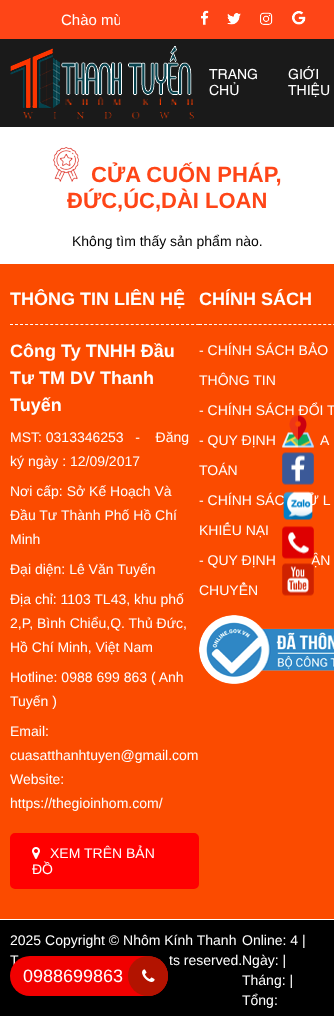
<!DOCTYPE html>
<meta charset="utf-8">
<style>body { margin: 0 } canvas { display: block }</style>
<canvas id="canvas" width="334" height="1016"></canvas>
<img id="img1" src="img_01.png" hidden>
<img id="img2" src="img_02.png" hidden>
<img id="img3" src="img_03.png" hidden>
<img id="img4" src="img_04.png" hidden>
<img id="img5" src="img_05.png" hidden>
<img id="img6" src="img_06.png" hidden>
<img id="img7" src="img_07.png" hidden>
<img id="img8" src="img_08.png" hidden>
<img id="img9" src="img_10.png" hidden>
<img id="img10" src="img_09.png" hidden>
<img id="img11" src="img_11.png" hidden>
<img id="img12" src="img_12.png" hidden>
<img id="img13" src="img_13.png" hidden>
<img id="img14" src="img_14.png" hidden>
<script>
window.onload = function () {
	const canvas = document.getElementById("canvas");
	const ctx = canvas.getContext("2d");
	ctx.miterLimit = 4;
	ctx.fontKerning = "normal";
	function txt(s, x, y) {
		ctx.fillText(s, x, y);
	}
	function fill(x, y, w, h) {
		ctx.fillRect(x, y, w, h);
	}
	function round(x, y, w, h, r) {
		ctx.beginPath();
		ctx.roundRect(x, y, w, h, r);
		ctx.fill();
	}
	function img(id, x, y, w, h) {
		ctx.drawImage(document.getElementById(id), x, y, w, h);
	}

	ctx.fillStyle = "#FFFFFF";
	fill(0, 0, 334, 1016);
	ctx.fillStyle = "#FE4517";
	fill(0, 0, 334, 39);
	img("img1", 201, 10, 8, 15);
	img("img2", 227, 13, 14, 12);
	img("img3", 260, 12, 13, 13);
	img("img4", 292, 11, 14, 14);
	ctx.fillStyle = "#1A1A1A";
	fill(0, 39, 334, 88);
	img("img5", 10, 46, 184, 73);
	img("img6", 53, 147, 26, 35);
	ctx.fillStyle = "#FB4B00";
	fill(0, 264, 334, 655);
	ctx.beginPath();
	ctx.moveTo(10, 324.5);
	ctx.lineTo(199, 324.5);
	ctx.strokeStyle = "#FFFFFF";
	ctx.setLineDash([3, 2.03]);
	ctx.stroke();
	ctx.fillStyle = "#FF0000";
	ctx.beginPath();
	ctx.roundRect(11, 834, 187, 54, 4);
	ctx.fill();
	ctx.strokeStyle = "#FF0000";
	ctx.lineWidth = 2;
	ctx.setLineDash([]);
	ctx.stroke();
	img("img7", 32, 847, 8, 12);
	ctx.beginPath();
	ctx.moveTo(199, 324.5);
	ctx.lineTo(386, 324.5);
	ctx.strokeStyle = "#FFFFFF";
	ctx.lineWidth = 1;
	ctx.setLineDash([3, 1.97]);
	ctx.stroke();
	img("img8", 199, 615, 135, 69);
	ctx.fillStyle = "#000000";
	fill(0, 920, 334, 96);
	img("img9", 282, 452, 32, 33);
	ctx.save();
	ctx.beginPath();
	ctx.rect(10, 11, 110, 17);
	ctx.clip();
	ctx.font = "15px Liberation Sans";
	ctx.fillStyle = "#FFFFFF";
	txt("Chào mừ", 61, 25);
	ctx.restore();
	ctx.font = "14px Helvetica";
	ctx.fillStyle = "#FFFFFF";
	txt("TRANG", 209, 79);
	txt("CHỦ", 209, 95);
	txt("GIỚI", 288, 79);
	txt("THIỆU", 288, 95);
	ctx.font = "bold 22px Liberation Sans";
	ctx.fillStyle = "#FE4517";
	txt("CỬA CUỐN PHÁP,", 91, 182);
	txt("ĐỨC,ÚC,DÀI LOAN", 67, 208);
	ctx.font = "14px Liberation Sans";
	ctx.fillStyle = "#000000";
	txt("Không tìm thấy sản phẩm nào.", 72, 246);
	ctx.font = "bold 18px Liberation Sans";
	ctx.fillStyle = "#FFFFFF";
	txt("THÔNG TIN LIÊN HỆ", 10, 305);
	txt("Công Ty TNHH Đầu", 10, 357);
	txt("Tư TM DV Thanh", 10, 384);
	txt("Tuyến", 10, 411);
	ctx.font = "14px Liberation Sans";
	txt("MST: 0313346253   -    Đăng", 10, 442);
	txt("ký ngày : 12/09/2017", 10, 466);
	txt("Nơi cấp: Sở Kế Hoạch Và", 10, 496);
	txt("Đầu Tư Thành Phố Hồ Chí", 10, 520);
	txt("Minh", 10, 544);
	txt("Đại diện: Lê Văn Tuyến", 10, 574);
	txt("Địa chỉ: 1103 TL43, khu phố", 10, 604);
	txt("2,P, Bình Chiểu,Q. Thủ Đức,", 10, 628);
	txt("Hồ Chí Minh, Việt Nam", 10, 652);
	txt("Hotline: 0988 699 863 ( Anh", 10, 682);
	txt("Tuyến )", 10, 706);
	txt("Email:", 10, 736);
	txt("cuasatthanhtuyen@gmail.com", 10, 760);
	txt("Website:", 10, 784);
	txt("https://thegioinhom.com/", 10, 808);
	txt("XEM TRÊN BẢN", 50, 858);
	txt("ĐỒ", 32, 874);
	ctx.font = "bold 18px Liberation Sans";
	txt("CHÍNH SÁCH", 199, 305);
	ctx.font = "14px Liberation Sans";
	txt("- CHÍNH SÁCH BẢO", 199, 355);
	txt("THÔNG TIN", 199, 385);
	txt("- CHÍNH SÁCH ĐỔI T", 199, 415);
	txt("- QUY ĐỊNH", 199, 445);
	txt("A", 320, 445);
	txt("TOÁN", 199, 475);
	txt("- CHÍNH SÁC", 199, 505);
	txt("Ử L", 307, 505);
	txt("KHIẾU NẠI", 199, 535);
	txt("- QUY ĐỊNH", 199, 565);
	txt("ẬN", 311, 565);
	txt("CHUYỂN", 199, 595);
	txt("2025 Copyright © Nhôm Kính Thanh", 10, 945);
	txt("T", 10, 965);
	txt("ts reserved.", 169, 965);
	txt("Online: 4 |", 242, 945);
	txt("Ngày: |", 242, 965);
	txt("Tháng: |", 242, 985);
	txt("Tổng:", 242, 1005);
	img("img10", 282, 415, 32, 33);
	img("img11", 283, 491, 30, 29);
	img("img12", 282, 526, 32, 33);
	img("img13", 282, 563, 32, 33);
	ctx.fillStyle = "#F10000";
	round(10, 956, 158, 40, 20);
	ctx.font = "18px Liberation Sans";
	ctx.fillStyle = "#FFFFFF";
	txt("0988699863", 23, 982);
	ctx.fillStyle = "#B21300";
	ctx.beginPath();
	ctx.arc(148, 976, 20, 0, Math.PI * 2);
	ctx.fill();
	img("img14", 142, 969, 13, 13);
};
</script>
